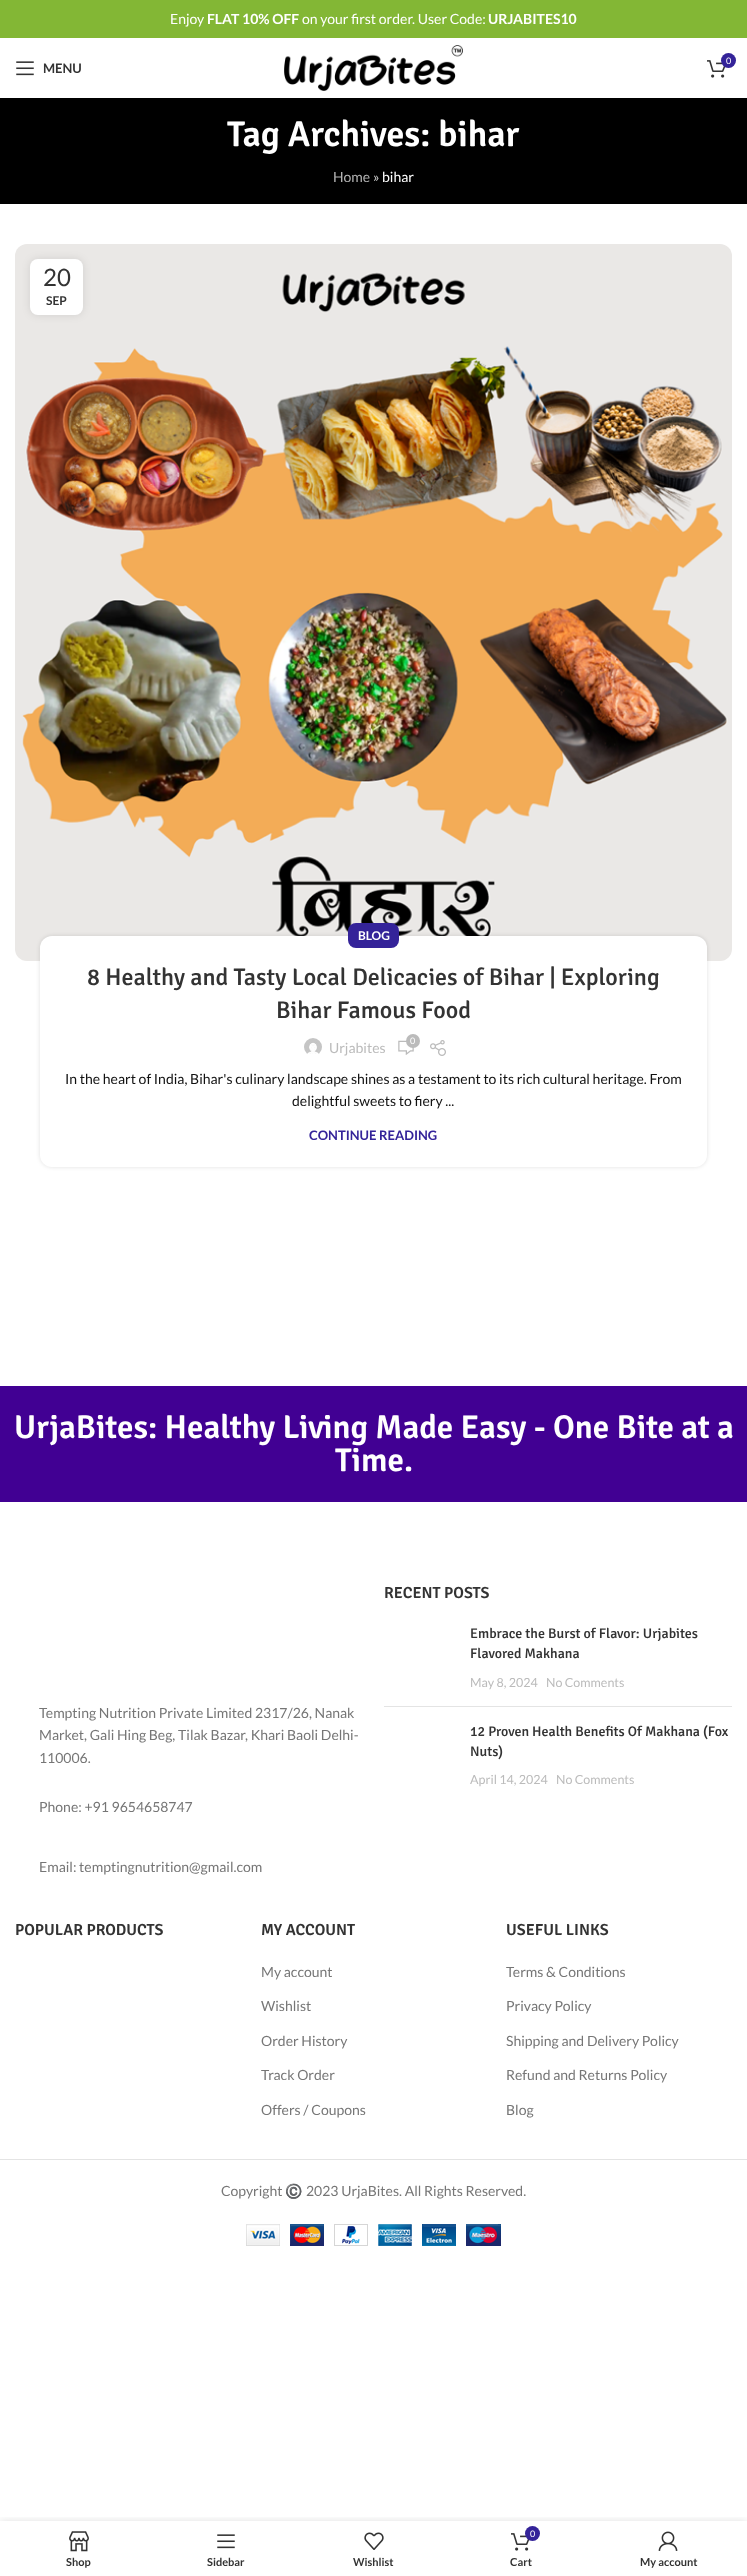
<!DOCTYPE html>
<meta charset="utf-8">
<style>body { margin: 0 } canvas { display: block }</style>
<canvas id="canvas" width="747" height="2576"></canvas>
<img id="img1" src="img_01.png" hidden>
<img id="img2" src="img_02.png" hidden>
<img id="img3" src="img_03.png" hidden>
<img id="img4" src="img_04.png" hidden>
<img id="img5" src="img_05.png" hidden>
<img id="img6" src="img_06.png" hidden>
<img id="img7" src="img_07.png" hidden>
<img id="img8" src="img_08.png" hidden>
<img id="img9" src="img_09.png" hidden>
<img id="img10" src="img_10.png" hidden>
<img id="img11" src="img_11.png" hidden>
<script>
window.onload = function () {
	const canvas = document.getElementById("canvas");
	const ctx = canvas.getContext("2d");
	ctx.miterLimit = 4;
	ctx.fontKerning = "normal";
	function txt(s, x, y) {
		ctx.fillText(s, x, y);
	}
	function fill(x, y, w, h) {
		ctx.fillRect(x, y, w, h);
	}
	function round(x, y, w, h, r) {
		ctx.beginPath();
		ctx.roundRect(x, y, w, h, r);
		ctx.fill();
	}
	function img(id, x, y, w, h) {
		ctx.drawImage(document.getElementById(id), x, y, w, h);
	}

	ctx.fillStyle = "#FFFFFF";
	fill(0, 0, 747, 2576);
	ctx.fillStyle = "#83B735";
	fill(0, 0, 747, 38);
	img("img1", 284, 45, 179, 46);
	img("img2", 707, 60, 19, 18);
	ctx.fillStyle = "#342399";
	ctx.beginPath();
	ctx.arc(728.5, 60.5, 7.5, 0, Math.PI * 2);
	ctx.fill();
	img("img3", 16, 61, 18, 15);
	ctx.fillStyle = "#000000";
	fill(0, 98, 747, 106);
	img("img4", 15, 244, 717, 717);
	ctx.fillStyle = "rgba(0, 0, 0, 0.1)";
	ctx.filter = "blur(4.5px)";
	ctx.beginPath();
	ctx.roundRect(30, 259, 53, 56, 8);
	ctx.fill();
	ctx.filter = "none";
	ctx.fillStyle = "#FFFFFF";
	round(30, 259, 53, 56, 8);
	ctx.fillStyle = "rgba(0, 0, 0, 0.12)";
	ctx.filter = "blur(2px)";
	ctx.beginPath();
	ctx.roundRect(40, 936, 667, 231, 12);
	ctx.fill();
	ctx.filter = "none";
	ctx.fillStyle = "#FFFFFF";
	round(40, 936, 667, 231, 12);
	ctx.fillStyle = "#342399";
	round(348, 923, 51, 25, 8);
	img("img5", 398, 1040, 16, 15);
	ctx.fillStyle = "#BBBBBB";
	ctx.beginPath();
	ctx.arc(413, 1041, 7, 0, Math.PI * 2);
	ctx.fill();
	img("img6", 304, 1038, 18, 16);
	img("img7", 430, 1040, 16, 16);
	ctx.fillStyle = "#410093";
	fill(0, 1386, 747, 116);
	ctx.fillStyle = "#E4E4E4";
	fill(384, 1706, 348, 1);
	fill(0, 2159, 747, 1);
	img("img8", 246, 2224, 255, 22);
	ctx.save();
	ctx.beginPath();
	ctx.rect(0, 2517, 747, 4);
	ctx.clip();
	ctx.fillStyle = "rgba(0, 0, 0, 0.12)";
	ctx.filter = "blur(4.5px)";
	ctx.beginPath();
	ctx.rect(0, 2521, 747, 55);
	ctx.fill();
	ctx.filter = "none";
	ctx.restore();
	img("img9", 69, 2531, 20, 21);
	img("img3", 217, 2534, 18, 15);
	img("img10", 364, 2532, 20, 18);
	img("img2", 511, 2533, 19, 18);
	ctx.fillStyle = "#342399";
	ctx.beginPath();
	ctx.arc(532.5, 2533.5, 7.5, 0, Math.PI * 2);
	ctx.fill();
	img("img11", 658, 2531, 20, 20);
	ctx.font = "14px Lato";
	ctx.fillStyle = "#FFFFFF";
	txt("Enjoy", 170, 24);
	ctx.font = "bold 14px Lato";
	txt("FLAT 10% OFF", 207, 24);
	ctx.font = "14px Lato";
	txt("on your first order. User Code:", 302, 24);
	ctx.font = "bold 14px Lato";
	txt("URJABITES10", 488, 24);
	ctx.font = "9px Lato";
	txt("0", 726, 64);
	ctx.font = "bold 13px Lato";
	ctx.fillStyle = "#333333";
	txt("MENU", 43, 73);
	ctx.font = "600 36px Signika";
	ctx.fillStyle = "#FFFFFF";
	txt("Tag Archives: bihar", 227, 146);
	ctx.font = "14px Lato";
	ctx.fillStyle = "#B3B3B3";
	txt("Home", 333, 182);
	ctx.fillStyle = "#CCCCCC";
	txt("»", 373, 182);
	ctx.fillStyle = "#FFFFFF";
	txt("bihar", 382, 182);
	ctx.font = "24px Lato";
	ctx.fillStyle = "#333333";
	txt("20", 43, 286);
	ctx.font = "bold 12px Lato";
	txt("SEP", 46, 305);
	ctx.fillStyle = "#FFFFFF";
	txt("BLOG", 358, 940);
	ctx.font = "500 24px Signika";
	ctx.fillStyle = "#333333";
	txt("8 Healthy and Tasty Local Delicacies of Bihar | Exploring", 87, 985);
	txt("Bihar Famous Food", 276, 1018);
	ctx.font = "9px Lato";
	ctx.fillStyle = "#FFFFFF";
	txt("0", 410, 1044);
	ctx.font = "14px Lato";
	ctx.fillStyle = "#BBBBBB";
	txt("Urjabites", 329, 1053);
	ctx.fillStyle = "#111111";
	txt("In the heart of India, Bihar's culinary landscape shines as a testament to its rich cultural heritage. From", 65, 1084);
	txt("delightful sweets to fiery ...", 292, 1106);
	ctx.font = "bold 13px Lato";
	ctx.fillStyle = "#342399";
	txt("CONTINUE READING", 309, 1140);
	ctx.font = "600 33px Signika";
	ctx.fillStyle = "#FFFFFF";
	txt("UrjaBites: Healthy Living Made Easy - One Bite at a", 14, 1438);
	txt("Time.", 335, 1471);
	ctx.font = "14px Lato";
	ctx.fillStyle = "#767676";
	txt("Tempting Nutrition Private Limited 2317/26, Nanak", 39, 1718);
	txt("Market, Gali Hing Beg, Tilak Bazar, Khari Baoli Delhi-", 39, 1740);
	txt("110006.", 39, 1763);
	txt("Phone: +91 9654658747", 39, 1812);
	txt("Email: temptingnutrition@gmail.com", 39, 1872);
	ctx.font = "600 16px Signika";
	ctx.fillStyle = "#333333";
	txt("RECENT POSTS", 384, 1598);
	ctx.font = "500 14px Signika";
	txt("Embrace the Burst of Flavor: Urjabites", 470, 1638);
	txt("Flavored Makhana", 470, 1658);
	ctx.font = "12.5px Lato";
	ctx.fillStyle = "#BBBBBB";
	txt("May 8, 2024", 470, 1687);
	txt("No Comments", 546, 1687);
	ctx.font = "500 14px Signika";
	ctx.fillStyle = "#333333";
	txt("12 Proven Health Benefits Of Makhana (Fox", 470, 1736);
	txt("Nuts)", 470, 1756);
	ctx.font = "12.5px Lato";
	ctx.fillStyle = "#BBBBBB";
	txt("April 14, 2024", 470, 1784);
	txt("No Comments", 556, 1784);
	ctx.font = "600 16px Signika";
	ctx.fillStyle = "#333333";
	txt("POPULAR PRODUCTS", 15, 1935);
	txt("MY ACCOUNT", 261, 1935);
	ctx.font = "14px Lato";
	ctx.fillStyle = "#767676";
	txt("My account", 261, 1977);
	txt("Wishlist", 261, 2011);
	txt("Order History", 261, 2046);
	txt("Track Order", 261, 2080);
	txt("Offers / Coupons", 261, 2115);
	ctx.font = "600 16px Signika";
	ctx.fillStyle = "#333333";
	txt("USEFUL LINKS", 506, 1935);
	ctx.font = "14px Lato";
	ctx.fillStyle = "#767676";
	txt("Terms & Conditions", 506, 1977);
	txt("Privacy Policy", 506, 2011);
	txt("Shipping and Delivery Policy", 506, 2046);
	txt("Refund and Returns Policy", 506, 2080);
	txt("Blog", 506, 2115);
	txt("Copyright", 221, 2196);
	ctx.font = "14px Noto Color Emoji";
	txt("©️", 285, 2196);
	ctx.font = "14px Lato";
	txt("2023 UrjaBites. All Rights Reserved.", 306, 2196);
	ctx.font = "bold 11px Lato";
	ctx.fillStyle = "#333333";
	txt("Shop", 66, 2566);
	txt("Sidebar", 207, 2566);
	txt("Wishlist", 353, 2566);
	ctx.font = "9px Lato";
	ctx.fillStyle = "#FFFFFF";
	txt("0", 530, 2537);
	ctx.font = "bold 11px Lato";
	ctx.fillStyle = "#333333";
	txt("Cart", 510, 2566);
	txt("My account", 640, 2566);
};
</script>
